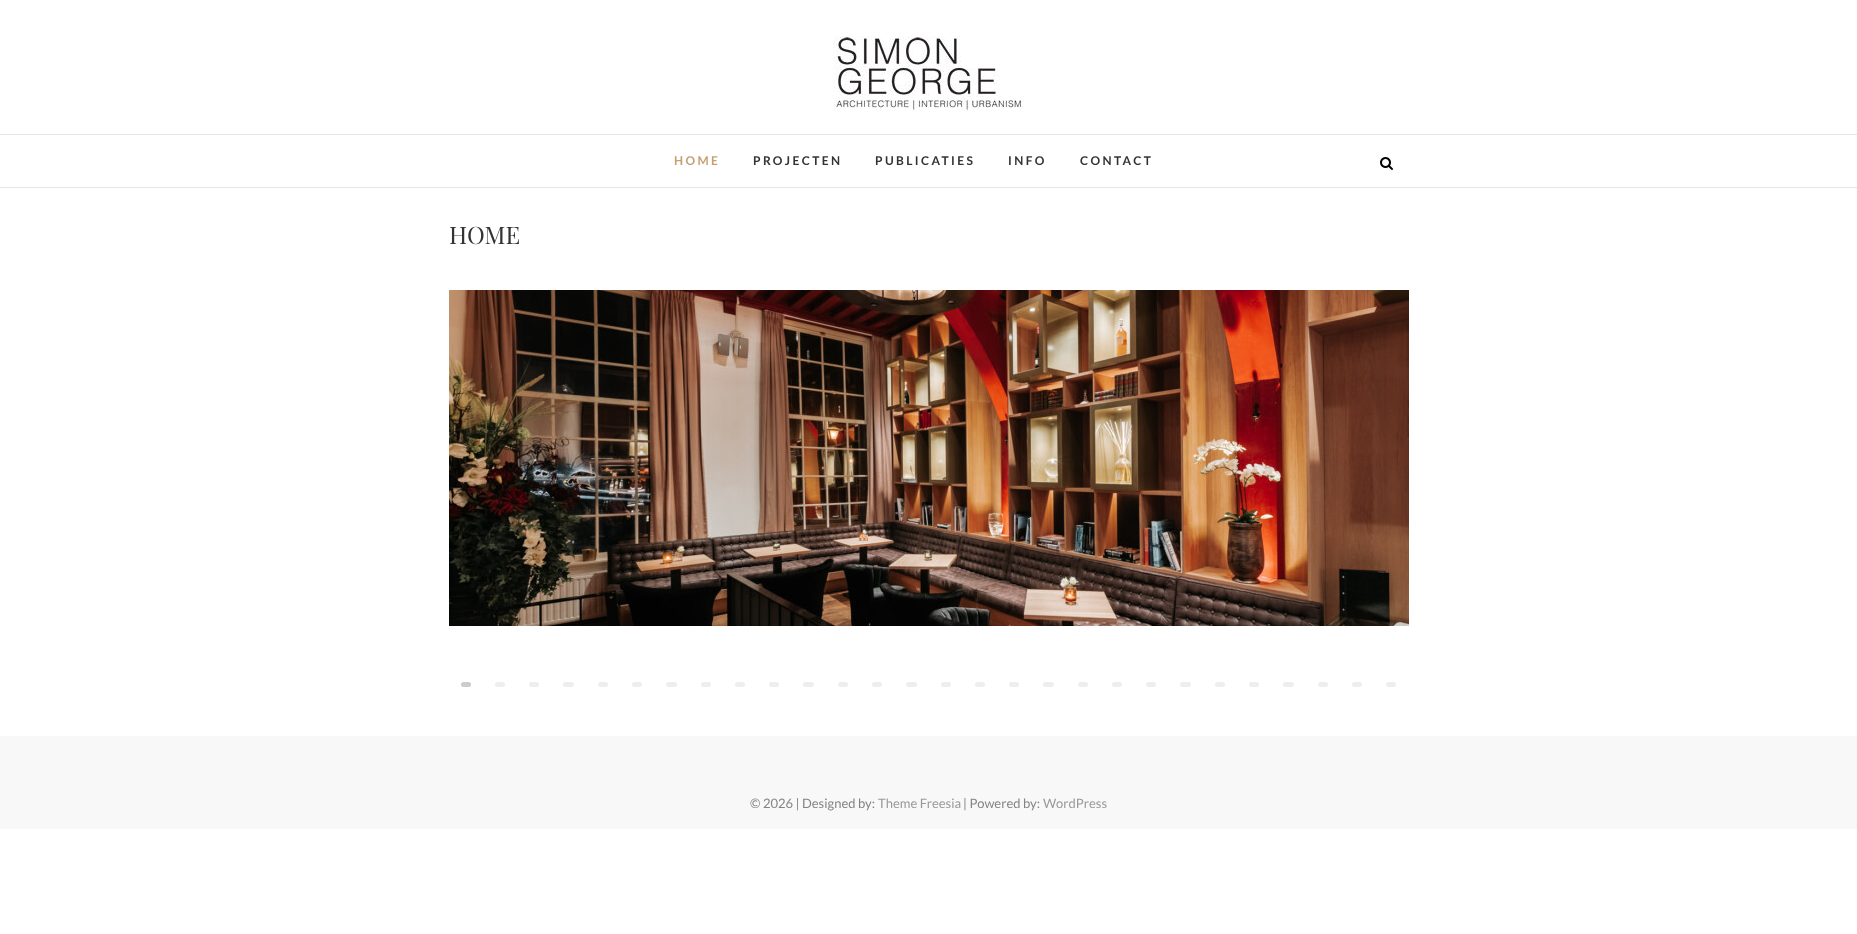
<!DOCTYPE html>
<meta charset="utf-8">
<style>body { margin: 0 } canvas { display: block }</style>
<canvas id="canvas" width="1857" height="934"></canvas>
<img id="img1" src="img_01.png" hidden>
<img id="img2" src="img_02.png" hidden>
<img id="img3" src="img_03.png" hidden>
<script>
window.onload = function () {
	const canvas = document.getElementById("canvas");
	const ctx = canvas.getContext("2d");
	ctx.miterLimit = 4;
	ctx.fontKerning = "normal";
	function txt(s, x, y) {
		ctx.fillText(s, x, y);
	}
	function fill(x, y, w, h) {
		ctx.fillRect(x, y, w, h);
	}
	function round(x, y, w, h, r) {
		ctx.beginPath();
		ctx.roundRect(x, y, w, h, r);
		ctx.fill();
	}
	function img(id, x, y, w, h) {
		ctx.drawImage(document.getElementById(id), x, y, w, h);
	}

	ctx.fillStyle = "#FFFFFF";
	fill(0, 0, 1857, 934);
	ctx.fillStyle = "#E6E6E6";
	fill(0, 134, 1857, 1);
	img("img1", 833, 36, 192, 77);
	fill(0, 187, 1857, 1);
	img("img2", 1380, 157, 13, 13);
	img("img3", 449, 290, 960, 336);
	ctx.fillStyle = "#CCCCCC";
	round(461, 682, 10, 5, 2.5);
	ctx.fillStyle = "#EEEEEE";
	round(495, 682, 10, 5, 2.5);
	round(529, 682, 10, 5, 2.5);
	round(563, 682, 11, 5, 2.5);
	round(598, 682, 10, 5, 2.5);
	round(632, 682, 10, 5, 2.5);
	round(666, 682, 11, 5, 2.5);
	round(701, 682, 10, 5, 2.5);
	round(735, 682, 10, 5, 2.5);
	round(769, 682, 10, 5, 2.5);
	round(803, 682, 11, 5, 2.5);
	round(838, 682, 10, 5, 2.5);
	round(872, 682, 10, 5, 2.5);
	round(906, 682, 11, 5, 2.5);
	round(941, 682, 10, 5, 2.5);
	round(975, 682, 10, 5, 2.5);
	round(1009, 682, 10, 5, 2.5);
	round(1043, 682, 11, 5, 2.5);
	round(1078, 682, 10, 5, 2.5);
	round(1112, 682, 10, 5, 2.5);
	round(1146, 682, 10, 5, 2.5);
	round(1180, 682, 11, 5, 2.5);
	round(1215, 682, 10, 5, 2.5);
	round(1249, 682, 10, 5, 2.5);
	round(1283, 682, 11, 5, 2.5);
	round(1318, 682, 10, 5, 2.5);
	round(1352, 682, 10, 5, 2.5);
	round(1386, 682, 10, 5, 2.5);
	ctx.fillStyle = "#F8F8F8";
	fill(0, 736, 1857, 93);
	ctx.letterSpacing = "2.4px";
	ctx.font = "bold 12px Lato";
	ctx.fillStyle = "#C69F70";
	txt("HOME", 674, 165);
	ctx.fillStyle = "#333333";
	txt("PROJECTEN", 753, 165);
	txt("PUBLICATIES", 875, 165);
	txt("INFO", 1008, 165);
	txt("CONTACT", 1080, 165);
	ctx.letterSpacing = "0px";
	ctx.font = "24px Playfair Display";
	txt("HOME", 449, 244);
	ctx.font = "13px Lato";
	ctx.fillStyle = "#848484";
	txt("© 2026 | Designed by:", 750, 808);
	ctx.fillStyle = "#999999";
	txt("Theme Freesia", 878, 808);
	ctx.fillStyle = "#848484";
	txt("| Powered by:", 963, 808);
	ctx.fillStyle = "#999999";
	txt("WordPress", 1043, 808);
};
</script>
